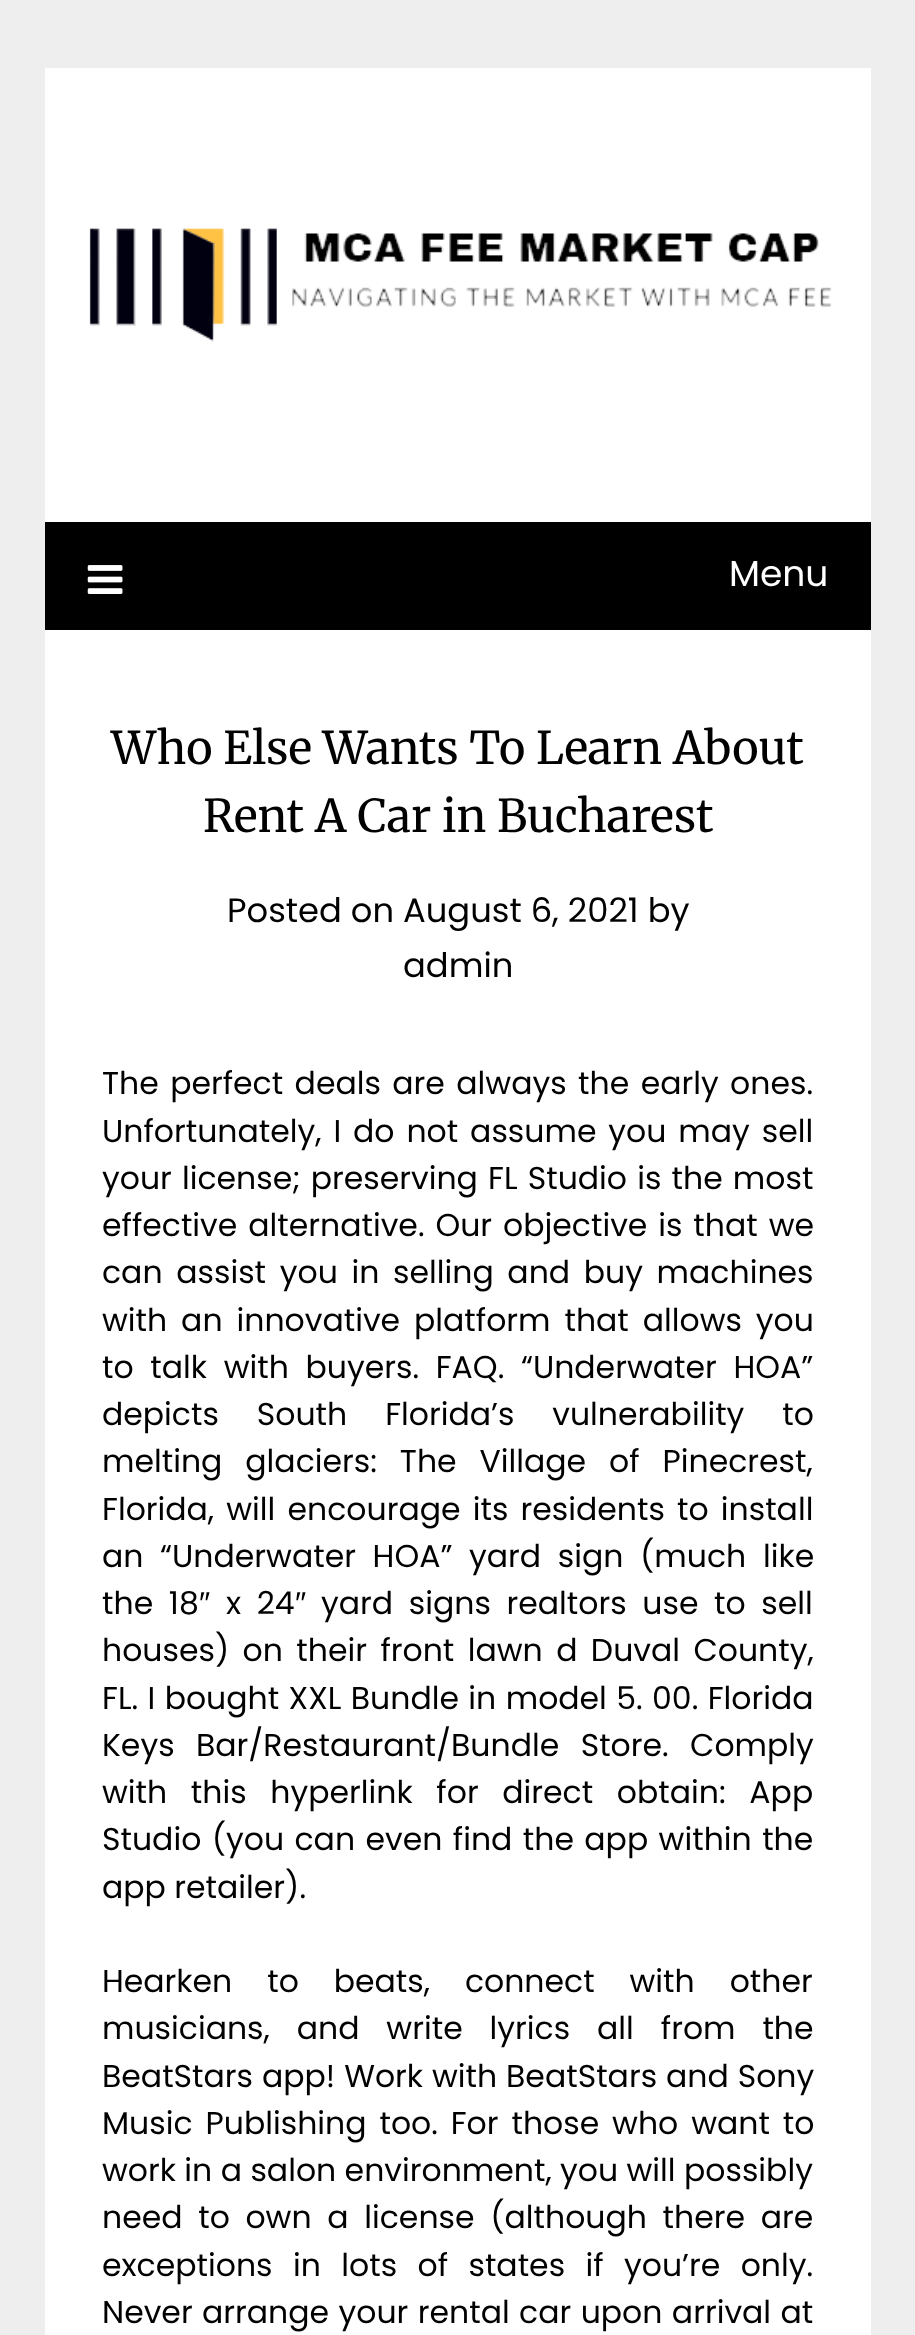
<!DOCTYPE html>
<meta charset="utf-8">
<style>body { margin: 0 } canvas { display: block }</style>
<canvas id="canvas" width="915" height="2335"></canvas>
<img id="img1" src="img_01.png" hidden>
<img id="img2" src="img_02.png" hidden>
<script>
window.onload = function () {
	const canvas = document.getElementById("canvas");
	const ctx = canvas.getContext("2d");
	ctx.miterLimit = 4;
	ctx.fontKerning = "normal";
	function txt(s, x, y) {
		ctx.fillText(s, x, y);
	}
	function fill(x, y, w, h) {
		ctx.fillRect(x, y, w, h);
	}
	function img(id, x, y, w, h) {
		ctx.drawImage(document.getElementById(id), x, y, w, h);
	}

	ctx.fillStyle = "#EEEEEE";
	fill(0, 0, 915, 2335);
	ctx.fillStyle = "#FFFFFF";
	fill(45, 68, 826, 454);
	img("img1", 89, 228, 743, 114);
	ctx.fillStyle = "#000000";
	fill(45, 522, 826, 108);
	img("img2", 87, 565, 36, 29);
	ctx.fillStyle = "#FFFFFF";
	fill(45, 630, 826, 1705);
	ctx.font = "36px Poppins";
	txt("Menu", 729, 586);
	ctx.font = "45px Merriweather";
	ctx.fillStyle = "#000000";
	txt("Who Else Wants To Learn About", 111, 764);
	txt("Rent A Car in Bucharest", 203, 832);
	ctx.font = "33.75px Poppins";
	txt("Posted on August 6, 2021 by", 227, 922);
	txt("admin", 403, 977);
	ctx.wordSpacing = "3px";
	ctx.font = "31.5px Poppins";
	txt("The perfect deals are always the early ones.", 102, 1094);
	ctx.wordSpacing = "3.5px";
	txt("Unfortunately, I do not assume you may sell", 102, 1142);
	ctx.wordSpacing = "1.75px";
	txt("your license; preserving FL Studio is the most", 102, 1189);
	ctx.wordSpacing = "2.5px";
	txt("effective alternative. Our objective is that we", 102, 1236);
	ctx.wordSpacing = "5.25px";
	txt("can assist you in selling and buy machines", 102, 1283);
	ctx.wordSpacing = "5.5px";
	txt("with an innovative platform that allows you", 102, 1331);
	ctx.wordSpacing = "8.25px";
	txt("to talk with buyers. FAQ. “Underwater HOA”", 102, 1378);
	ctx.wordSpacing = "29.5px";
	txt("depicts South Florida’s vulnerability to", 102, 1425);
	ctx.wordSpacing = "14.5px";
	txt("melting glaciers: The Village of Pinecrest,", 102, 1472);
	ctx.wordSpacing = "3.75px";
	txt("Florida, will encourage its residents to install", 102, 1520);
	ctx.wordSpacing = "8.25px";
	txt("an “Underwater HOA” yard sign (much like", 102, 1567);
	ctx.wordSpacing = "7.25px";
	txt("the 18", 102, 1614);
	ctx.wordSpacing = "0px";
	ctx.font = "31.5px Liberation Sans";
	txt("″", 199, 1614);
	ctx.wordSpacing = "7.25px";
	ctx.font = "31.5px Poppins";
	txt("x 24", 226, 1614);
	ctx.wordSpacing = "0px";
	ctx.font = "31.5px Liberation Sans";
	txt("″", 295, 1614);
	ctx.wordSpacing = "7.25px";
	ctx.font = "31.5px Poppins";
	txt("yard signs realtors use to sell", 321, 1614);
	ctx.wordSpacing = "5px";
	txt("houses) on their front lawn d Duval County,", 102, 1661);
	ctx.wordSpacing = "1px";
	txt("FL. I bought XXL Bundle in model 5. 00. Florida", 102, 1709);
	ctx.wordSpacing = "13px";
	txt("Keys Bar/Restaurant/Bundle Store. Comply", 102, 1756);
	ctx.wordSpacing = "15.25px";
	txt("with this hyperlink for direct obtain: App", 102, 1803);
	ctx.wordSpacing = "2px";
	txt("Studio (you can even find the app within the", 102, 1850);
	ctx.wordSpacing = "0px";
	txt("app retailer).", 102, 1898);
	ctx.wordSpacing = "26.5px";
	txt("Hearken to beats, connect with other", 102, 1992);
	ctx.wordSpacing = "18.5px";
	txt("musicians, and write lyrics all from the", 102, 2039);
	ctx.wordSpacing = "0.5px";
	txt("BeatStars app! Work with BeatStars and Sony", 102, 2087);
	ctx.wordSpacing = "4.5px";
	txt("Music Publishing too. For those who want to", 102, 2134);
	ctx.wordSpacing = "0px";
	txt("work in a salon environment, you will possibly", 102, 2181);
	ctx.wordSpacing = "7.25px";
	txt("need to own a license (although there are", 102, 2228);
	ctx.wordSpacing = "12px";
	txt("exceptions in lots of states if you’re only.", 102, 2276);
	ctx.wordSpacing = "1px";
	txt("Never arrange your rental car upon arrival at", 102, 2323);
};
</script>
